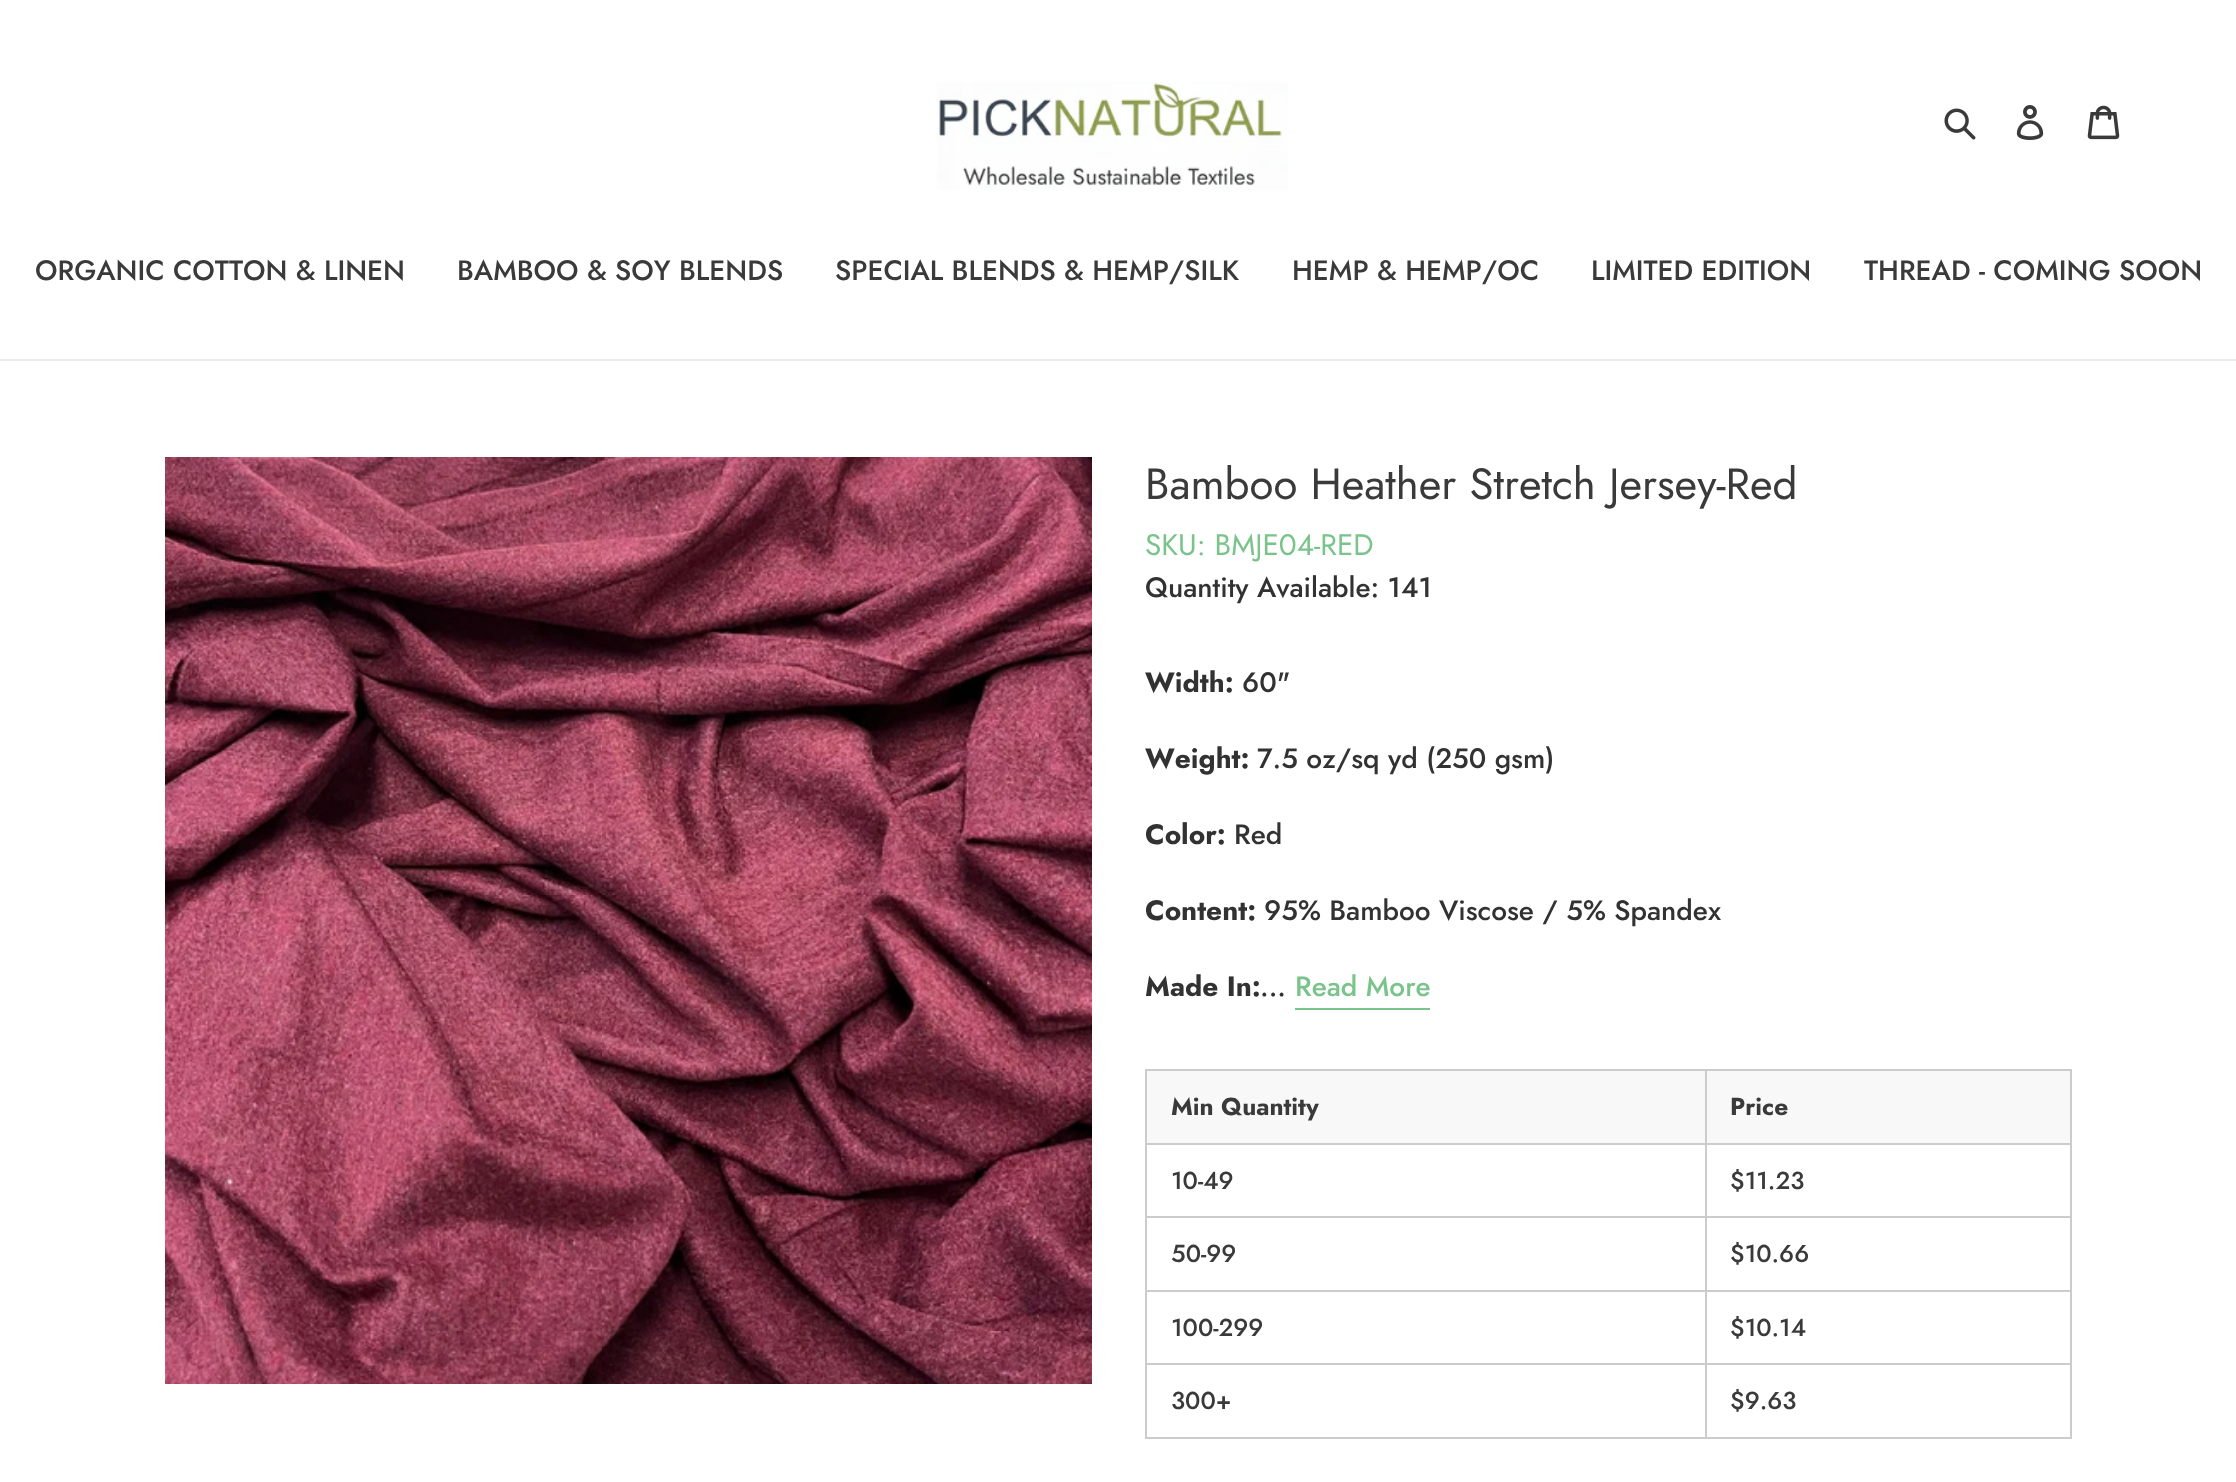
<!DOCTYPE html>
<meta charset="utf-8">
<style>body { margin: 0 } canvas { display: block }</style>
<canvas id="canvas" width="2236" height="1482"></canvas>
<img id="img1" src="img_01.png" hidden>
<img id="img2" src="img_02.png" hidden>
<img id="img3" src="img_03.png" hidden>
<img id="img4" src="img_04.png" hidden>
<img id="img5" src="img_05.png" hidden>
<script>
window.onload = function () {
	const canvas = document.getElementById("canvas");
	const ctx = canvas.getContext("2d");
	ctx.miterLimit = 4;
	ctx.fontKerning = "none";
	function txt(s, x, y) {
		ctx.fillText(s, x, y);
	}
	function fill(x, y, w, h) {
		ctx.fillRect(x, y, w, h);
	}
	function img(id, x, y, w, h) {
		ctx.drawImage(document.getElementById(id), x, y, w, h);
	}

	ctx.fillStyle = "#FFFFFF";
	fill(0, 0, 2236, 1482);
	img("img1", 937, 82, 351, 108);
	img("img2", 1944, 108, 32, 32);
	img("img3", 2016, 105, 28, 35);
	img("img4", 2087, 105, 33, 35);
	ctx.fillStyle = "#EBEBEB";
	fill(0, 359, 2236, 2);
	img("img5", 165, 457, 927, 927);
	ctx.fillStyle = "#7AC38B";
	fill(1295, 1008, 135, 2);
	ctx.fillStyle = "#F8F8F8";
	fill(1147, 1071, 923, 72);
	ctx.fillStyle = "#CCCCCC";
	fill(1705, 1069, 367, 2);
	fill(1705, 1143, 367, 2);
	fill(1705, 1216, 367, 2);
	fill(1705, 1290, 367, 2);
	fill(1705, 1363, 367, 2);
	fill(2070, 1363, 2, 76);
	fill(1705, 1437, 367, 2);
	fill(1705, 1363, 2, 76);
	fill(1145, 1363, 561, 2);
	fill(1705, 1290, 2, 75);
	fill(1145, 1290, 561, 2);
	fill(1705, 1216, 2, 76);
	fill(1145, 1216, 561, 2);
	fill(1705, 1143, 2, 75);
	fill(1145, 1143, 561, 2);
	fill(1705, 1069, 2, 76);
	fill(1145, 1069, 561, 2);
	fill(1145, 1437, 561, 2);
	fill(1145, 1363, 2, 76);
	fill(1145, 1290, 2, 75);
	fill(1145, 1216, 2, 76);
	fill(1145, 1143, 2, 75);
	fill(1145, 1069, 2, 76);
	fill(2070, 1290, 2, 75);
	fill(2070, 1216, 2, 76);
	fill(2070, 1143, 2, 75);
	fill(2070, 1069, 2, 76);
	ctx.font = "500 28px Jost";
	ctx.fillStyle = "#3A3A3A";
	txt("ORGANIC COTTON & LINEN", 35, 280);
	txt("BAMBOO & SOY BLENDS", 457, 280);
	txt("SPECIAL BLENDS & HEMP/SILK", 835, 280);
	txt("HEMP & HEMP/OC", 1292, 280);
	txt("LIMITED EDITION", 1591, 280);
	txt("THREAD - COMING SOON", 1864, 280);
	ctx.font = "43.75px Jost";
	txt("Bamboo Heather Stretch Jersey-Red", 1145, 499);
	ctx.font = "29.75px Jost";
	ctx.fillStyle = "#7AC38B";
	txt("SKU: BMJE04-RED", 1145, 555);
	ctx.font = "500 28px Jost";
	ctx.fillStyle = "#333232";
	txt("Quantity Available: 141", 1145, 597);
	ctx.font = "bold 28px Jost";
	txt("Width:", 1145, 692);
	ctx.font = "500 28px Jost";
	txt("60\"", 1242, 692);
	ctx.font = "bold 28px Jost";
	txt("Weight:", 1145, 768);
	ctx.font = "500 28px Jost";
	txt("7.5 oz/sq", 1257, 768);
	txt("yd (250 gsm)", 1388, 768);
	ctx.font = "bold 28px Jost";
	txt("Color:", 1145, 844);
	ctx.font = "500 28px Jost";
	txt("Red", 1234, 844);
	ctx.font = "bold 28px Jost";
	txt("Content:", 1145, 920);
	ctx.font = "500 28px Jost";
	txt("95% Bamboo Viscose / 5% Spandex", 1264, 920);
	ctx.font = "bold 28px Jost";
	txt("Made In:", 1145, 996);
	ctx.font = "500 28px Jost";
	txt("...", 1260, 996);
	ctx.fillStyle = "#7AC38B";
	txt("Read More", 1295, 996);
	ctx.font = "bold 24.5px Jost";
	ctx.fillStyle = "#3A3A3A";
	txt("Min Quantity", 1171, 1115);
	txt("Price", 1730, 1115);
	ctx.font = "500 24.5px Jost";
	txt("10-49", 1171, 1189);
	txt("$11.23", 1730, 1189);
	txt("50-99", 1171, 1262);
	txt("$10.66", 1730, 1262);
	txt("100-299", 1171, 1336);
	txt("$10.14", 1730, 1336);
	txt("300+", 1171, 1409);
	txt("$9.63", 1730, 1409);
};
</script>
